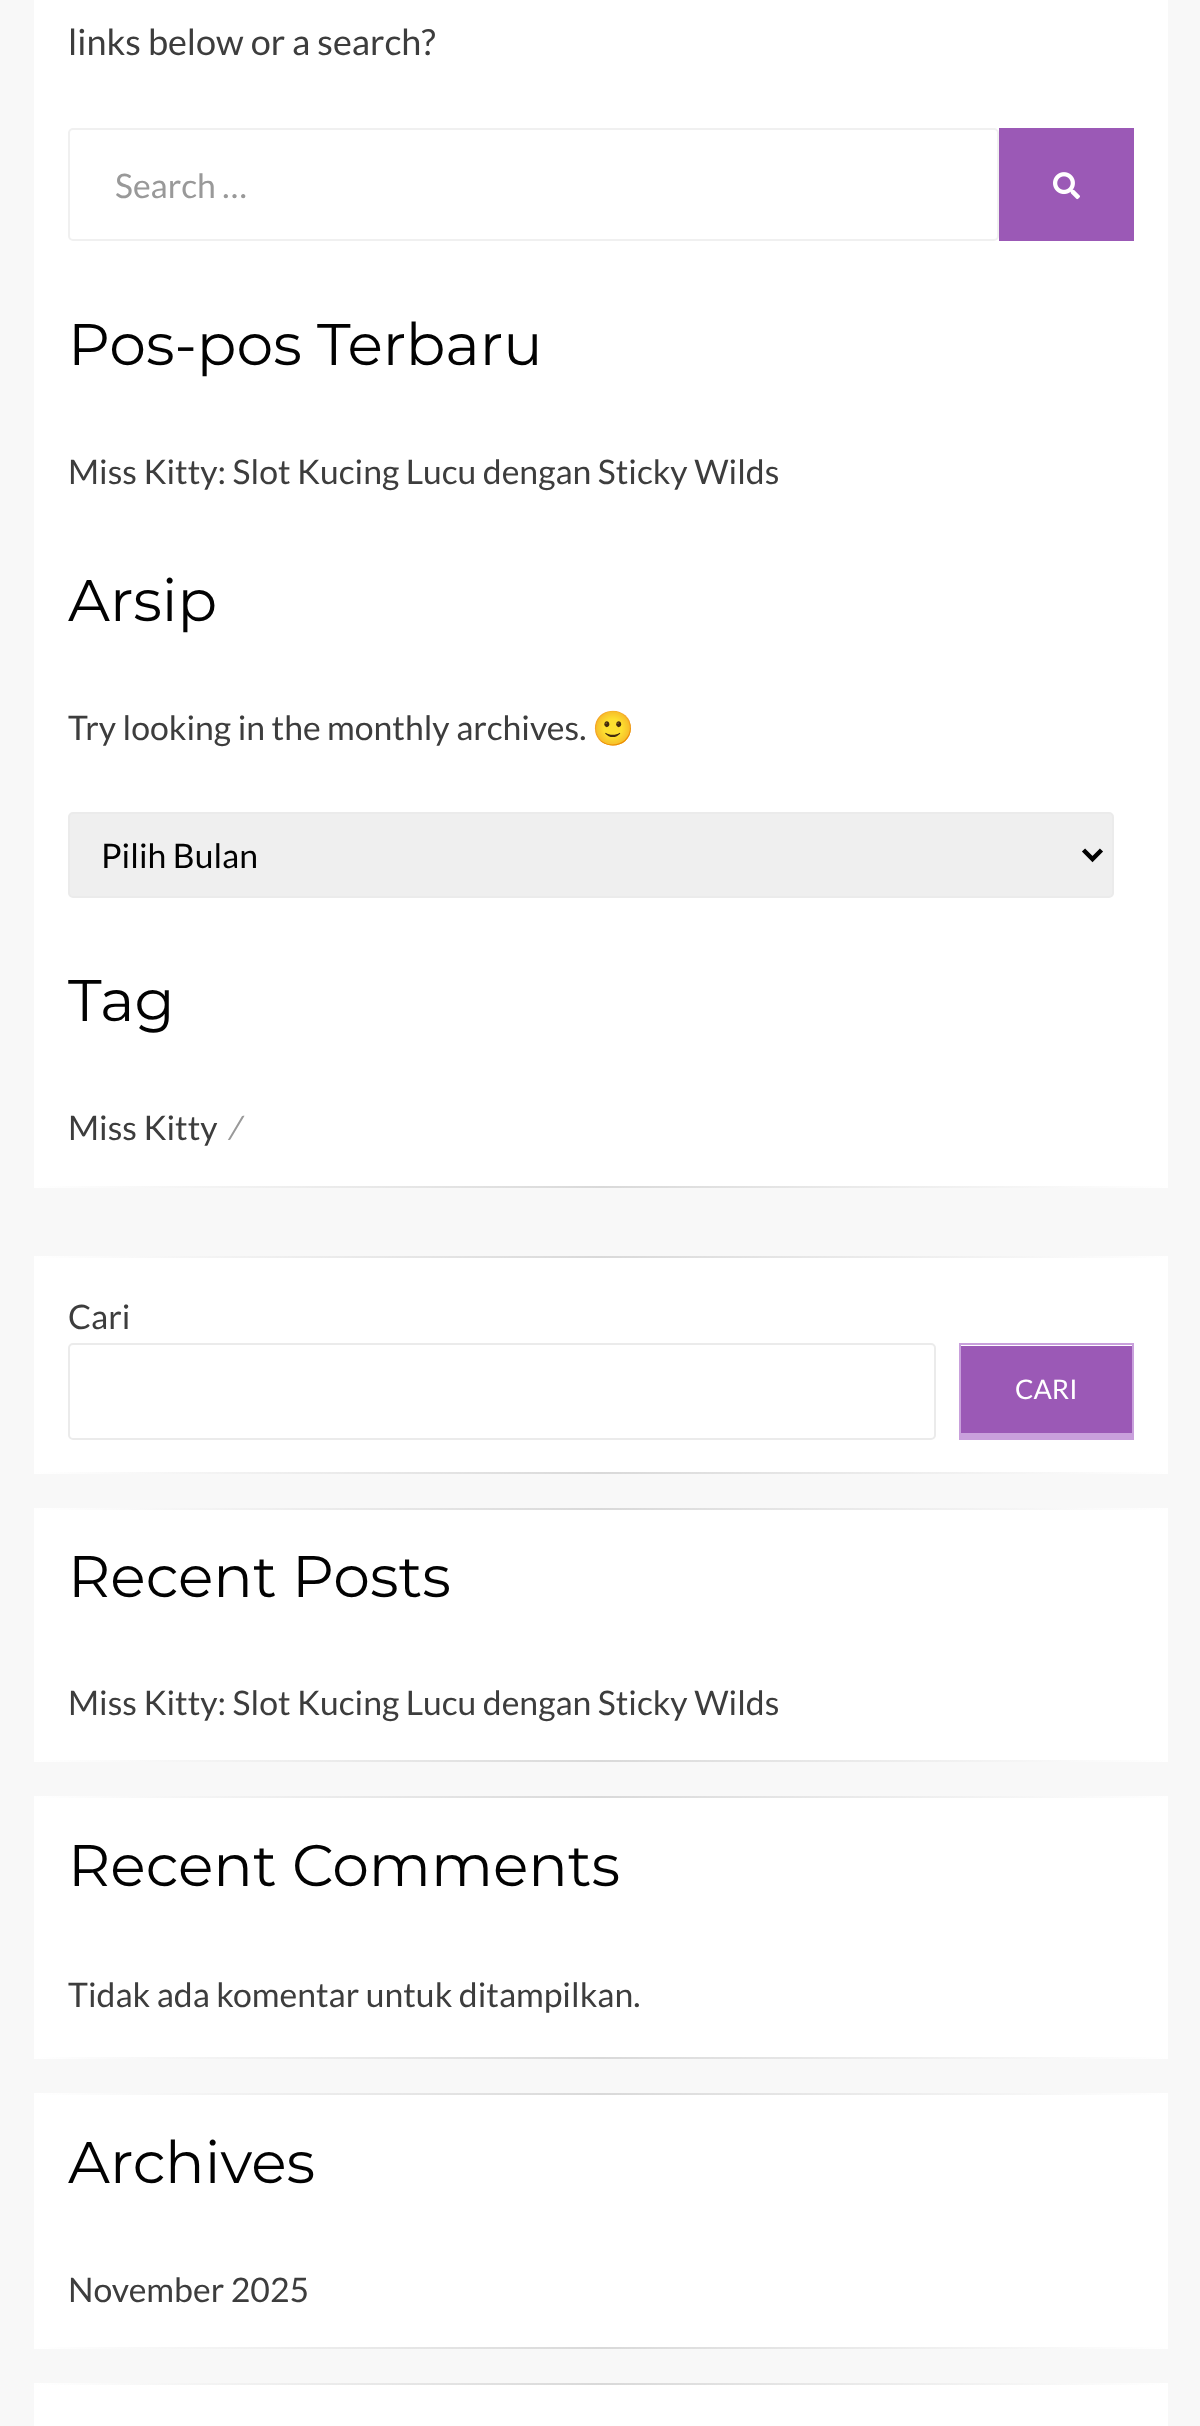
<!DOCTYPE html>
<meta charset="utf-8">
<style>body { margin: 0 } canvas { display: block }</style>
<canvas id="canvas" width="1200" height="2426"></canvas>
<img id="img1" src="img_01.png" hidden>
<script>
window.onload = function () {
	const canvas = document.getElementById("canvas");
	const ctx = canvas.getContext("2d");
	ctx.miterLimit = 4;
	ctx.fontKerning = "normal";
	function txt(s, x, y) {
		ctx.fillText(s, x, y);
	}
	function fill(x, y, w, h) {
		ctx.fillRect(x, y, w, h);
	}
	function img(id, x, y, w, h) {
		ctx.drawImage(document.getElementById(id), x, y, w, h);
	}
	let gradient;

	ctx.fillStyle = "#F8F8F8";
	fill(0, 0, 1200, 2426);
	ctx.fillStyle = "#FFFFFF";
	fill(34, 0, 1134, 1186);
	ctx.beginPath();
	ctx.roundRect(69, 129, 929, 111, 4);
	ctx.strokeStyle = "#F0F0F0";
	ctx.lineWidth = 2;
	ctx.stroke();
	ctx.fillStyle = "#9B59B6";
	fill(999, 128, 135, 113);
	img("img1", 1053, 172, 27, 28);
	ctx.fillStyle = "#EFEFEF";
	ctx.beginPath();
	ctx.roundRect(69, 813, 1044, 84, 4);
	ctx.fill();
	ctx.strokeStyle = "#EBEBEB";
	ctx.stroke();
	ctx.beginPath();
	ctx.moveTo(1083.5, 850);
	ctx.lineTo(1092.5, 859);
	ctx.lineTo(1101.5, 850);
	ctx.strokeStyle = "#020202";
	ctx.lineWidth = 4.5;
	ctx.stroke();
	gradient = ctx.createLinearGradient(34, 1187, 1168, 1187);
	gradient.addColorStop(0, "#FFFFFF");
	gradient.addColorStop(0.5, "#D9D9D9");
	gradient.addColorStop(1, "#FFFFFF");
	ctx.fillStyle = gradient;
	fill(34, 1186, 1134, 2);
	ctx.fillStyle = "#FFFFFF";
	fill(34, 1258, 1134, 214);
	gradient = ctx.createLinearGradient(34, 1257, 1168, 1257);
	gradient.addColorStop(0, "#FFFFFF");
	gradient.addColorStop(0.5, "#D9D9D9");
	gradient.addColorStop(1, "#FFFFFF");
	ctx.fillStyle = gradient;
	fill(34, 1256, 1134, 2);
	ctx.beginPath();
	ctx.roundRect(69, 1344, 866, 95, 4);
	ctx.strokeStyle = "#EBEBEB";
	ctx.lineWidth = 2;
	ctx.stroke();
	ctx.fillStyle = "#9B59B6";
	fill(961, 1346, 171, 87);
	ctx.fillStyle = "#C9A0DC";
	fill(959, 1343, 175, 2);
	fill(1132, 1343, 2, 97);
	fill(959, 1433, 175, 7);
	fill(959, 1343, 2, 97);
	gradient = ctx.createLinearGradient(34, 1473, 1168, 1473);
	gradient.addColorStop(0, "#FFFFFF");
	gradient.addColorStop(0.5, "#D9D9D9");
	gradient.addColorStop(1, "#FFFFFF");
	ctx.fillStyle = gradient;
	fill(34, 1472, 1134, 2);
	ctx.fillStyle = "#FFFFFF";
	fill(34, 1510, 1134, 250);
	gradient = ctx.createLinearGradient(34, 1509, 1168, 1509);
	gradient.addColorStop(0, "#FFFFFF");
	gradient.addColorStop(0.5, "#D9D9D9");
	gradient.addColorStop(1, "#FFFFFF");
	ctx.fillStyle = gradient;
	fill(34, 1508, 1134, 2);
	gradient = ctx.createLinearGradient(34, 1761, 1168, 1761);
	gradient.addColorStop(0, "#FFFFFF");
	gradient.addColorStop(0.5, "#D9D9D9");
	gradient.addColorStop(1, "#FFFFFF");
	ctx.fillStyle = gradient;
	fill(34, 1760, 1134, 2);
	ctx.fillStyle = "#FFFFFF";
	fill(34, 1798, 1134, 259);
	gradient = ctx.createLinearGradient(34, 1797, 1168, 1797);
	gradient.addColorStop(0, "#FFFFFF");
	gradient.addColorStop(0.5, "#D9D9D9");
	gradient.addColorStop(1, "#FFFFFF");
	ctx.fillStyle = gradient;
	fill(34, 1796, 1134, 2);
	gradient = ctx.createLinearGradient(34, 2058, 1168, 2058);
	gradient.addColorStop(0, "#FFFFFF");
	gradient.addColorStop(0.5, "#D9D9D9");
	gradient.addColorStop(1, "#FFFFFF");
	ctx.fillStyle = gradient;
	fill(34, 2057, 1134, 2);
	ctx.fillStyle = "#FFFFFF";
	fill(34, 2095, 1134, 252);
	gradient = ctx.createLinearGradient(34, 2094, 1168, 2094);
	gradient.addColorStop(0, "#FFFFFF");
	gradient.addColorStop(0.5, "#D9D9D9");
	gradient.addColorStop(1, "#FFFFFF");
	ctx.fillStyle = gradient;
	fill(34, 2093, 1134, 2);
	gradient = ctx.createLinearGradient(34, 2348, 1168, 2348);
	gradient.addColorStop(0, "#FFFFFF");
	gradient.addColorStop(0.5, "#D9D9D9");
	gradient.addColorStop(1, "#FFFFFF");
	ctx.fillStyle = gradient;
	fill(34, 2347, 1134, 2);
	ctx.fillStyle = "#FFFFFF";
	fill(34, 2385, 1134, 41);
	gradient = ctx.createLinearGradient(34, 2384, 1168, 2384);
	gradient.addColorStop(0, "#FFFFFF");
	gradient.addColorStop(0.5, "#D9D9D9");
	gradient.addColorStop(1, "#FFFFFF");
	ctx.fillStyle = gradient;
	fill(34, 2383, 1134, 2);
	ctx.font = "36px Lato";
	ctx.fillStyle = "#3D3D3D";
	txt("links below or a search?", 68, 55);
	ctx.font = "33.75px Lato";
	ctx.fillStyle = "#999999";
	txt("Search …", 115, 198);
	ctx.font = "58.5px Montserrat";
	ctx.fillStyle = "#020202";
	txt("Pos-pos Terbaru", 68, 365);
	ctx.font = "33.75px Lato";
	ctx.fillStyle = "#3D3D3D";
	txt("Miss Kitty: Slot Kucing Lucu dengan Sticky Wilds", 68, 484);
	ctx.font = "58.5px Montserrat";
	ctx.fillStyle = "#020202";
	txt("Arsip", 68, 621);
	ctx.font = "33.75px Lato";
	ctx.fillStyle = "#3D3D3D";
	txt("Try looking in the monthly archives.", 68, 740);
	ctx.font = "33.75px Noto Color Emoji";
	txt("🙂", 592, 740);
	ctx.font = "33.75px Lato";
	ctx.fillStyle = "#020202";
	txt("Pilih Bulan", 101, 868);
	ctx.font = "58.5px Montserrat";
	txt("Tag", 68, 1021);
	ctx.font = "33.75px Lato";
	ctx.fillStyle = "#3D3D3D";
	txt("Miss Kitty", 68, 1140);
	ctx.fillStyle = "#999999";
	txt("⁄", 231, 1140);
	ctx.fillStyle = "#3D3D3D";
	txt("Cari", 68, 1329);
	ctx.font = "27px Lato";
	ctx.fillStyle = "#FFFFFF";
	txt("CARI", 1015, 1399);
	ctx.font = "58.5px Montserrat";
	ctx.fillStyle = "#020202";
	txt("Recent Posts", 68, 1597);
	ctx.font = "33.75px Lato";
	ctx.fillStyle = "#3D3D3D";
	txt("Miss Kitty: Slot Kucing Lucu dengan Sticky Wilds", 68, 1715);
	ctx.font = "58.5px Montserrat";
	ctx.fillStyle = "#020202";
	txt("Recent Comments", 68, 1886);
	ctx.font = "33.75px Lato";
	ctx.fillStyle = "#3D3D3D";
	txt("Tidak ada komentar untuk ditampilkan.", 68, 2007);
	ctx.font = "58.5px Montserrat";
	ctx.fillStyle = "#020202";
	txt("Archives", 68, 2183);
	ctx.font = "33.75px Lato";
	ctx.fillStyle = "#3D3D3D";
	txt("November 2025", 68, 2302);
};
</script>
